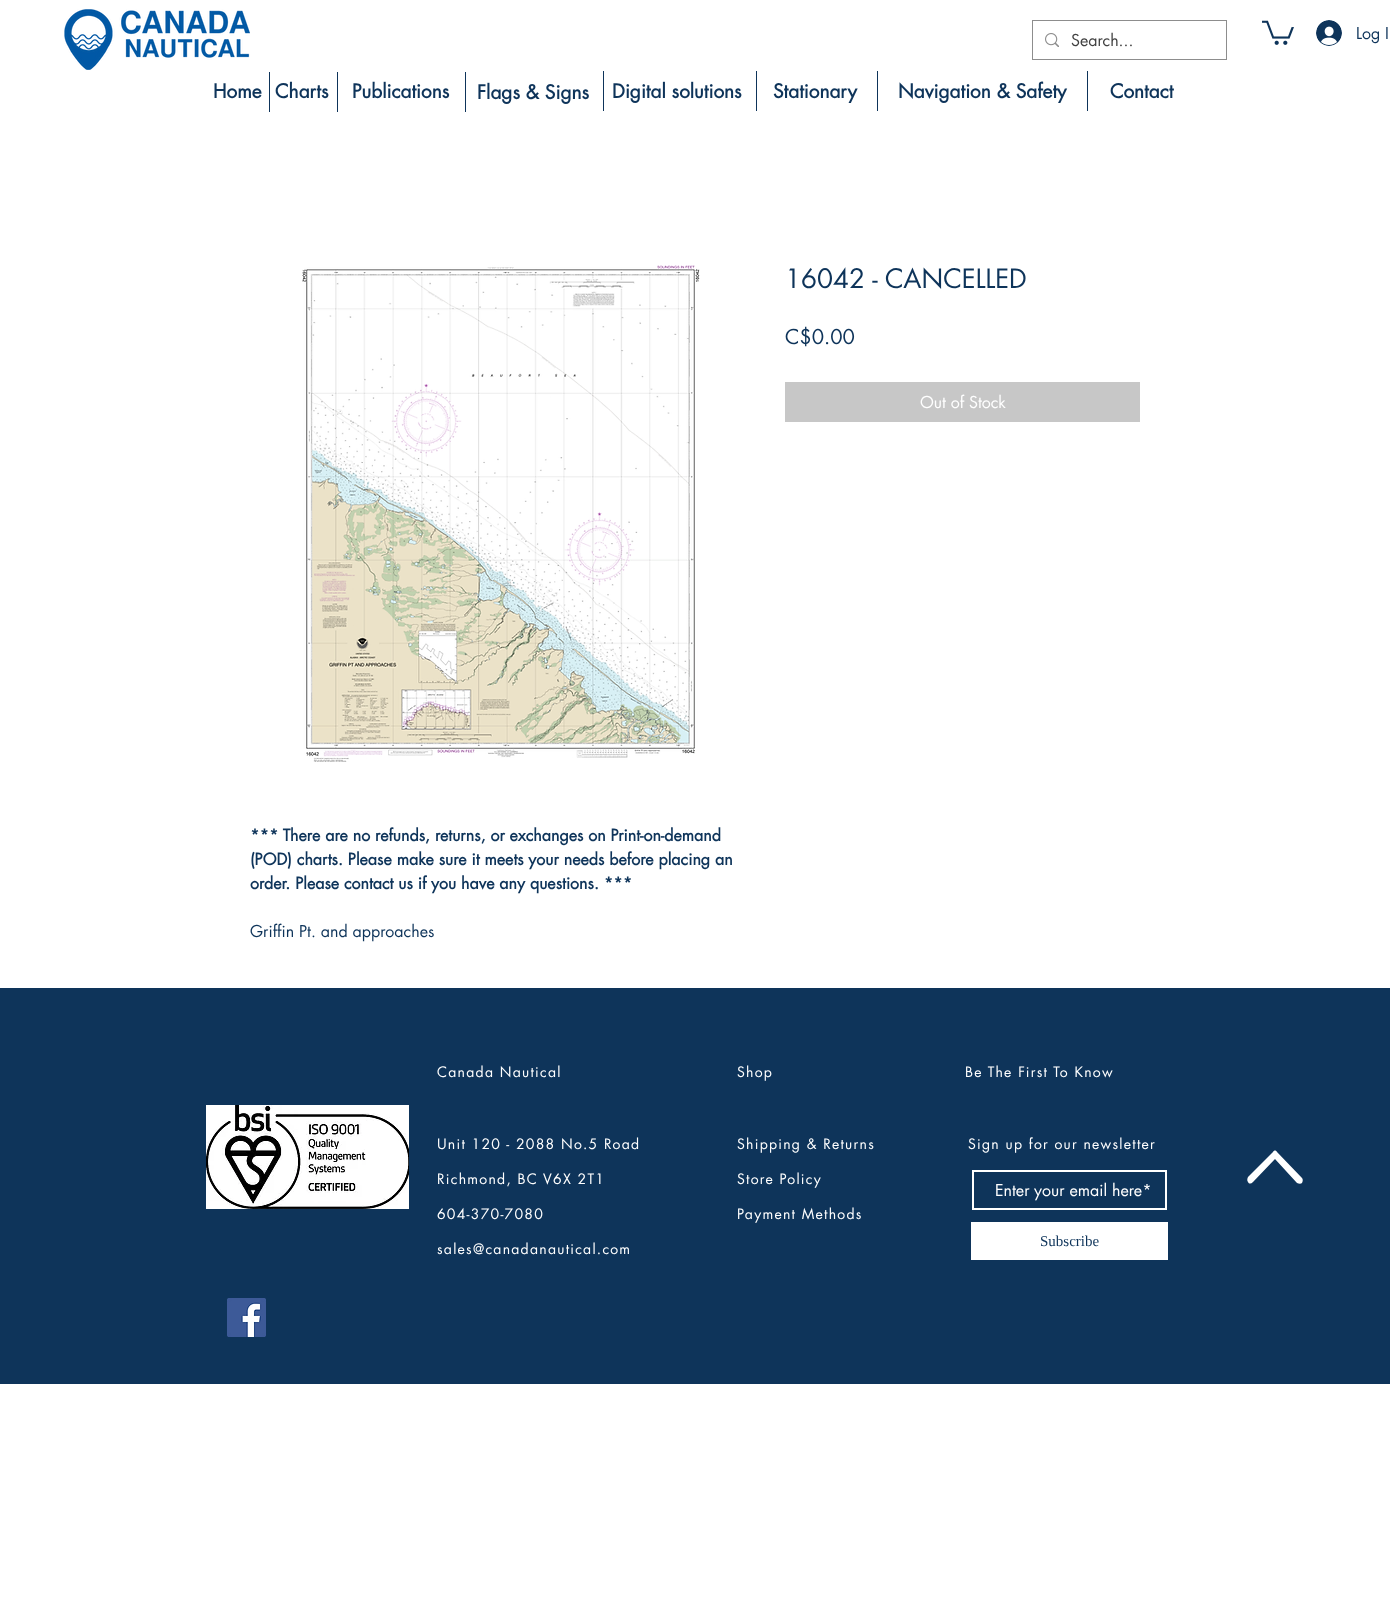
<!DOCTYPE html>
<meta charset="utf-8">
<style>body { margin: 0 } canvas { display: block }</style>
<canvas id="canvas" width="1390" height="1622"></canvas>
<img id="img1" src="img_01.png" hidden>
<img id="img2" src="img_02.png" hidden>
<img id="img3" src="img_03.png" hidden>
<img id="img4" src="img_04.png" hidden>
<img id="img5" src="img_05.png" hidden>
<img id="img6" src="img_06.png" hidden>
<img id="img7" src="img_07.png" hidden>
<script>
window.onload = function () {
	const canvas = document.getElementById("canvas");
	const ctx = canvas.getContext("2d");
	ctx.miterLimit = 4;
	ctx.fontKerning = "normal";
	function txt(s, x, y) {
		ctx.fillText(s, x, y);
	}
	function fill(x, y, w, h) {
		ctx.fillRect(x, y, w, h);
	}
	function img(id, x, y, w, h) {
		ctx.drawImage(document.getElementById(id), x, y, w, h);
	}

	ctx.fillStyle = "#FFFFFF";
	fill(0, 0, 1390, 1622);
	img("img1", 64, 9, 186, 61);
	ctx.strokeStyle = "#8D8D8D";
	ctx.strokeRect(1032.5, 20.5, 194, 39);
	img("img2", 1045, 33, 14, 14);
	img("img3", 1262, 20, 32, 25);
	img("img4", 1316, 20, 26, 26);
	ctx.fillStyle = "#0E345A";
	fill(269, 72, 1, 40);
	fill(337, 72, 1, 40);
	fill(465, 72, 1, 40);
	fill(603, 71, 1, 40);
	fill(756, 71, 1, 40);
	fill(877, 71, 1, 40);
	fill(1087, 71, 1, 40);
	ctx.fillStyle = "#C7C7C7";
	fill(785, 382, 355, 40);
	img("img5", 302, 265, 398, 497);
	ctx.fillStyle = "#0E345A";
	fill(0, 988, 1390, 396);
	img("img6", 206, 1105, 203, 104);
	ctx.strokeStyle = "#FFFFFF";
	ctx.lineWidth = 2;
	ctx.strokeRect(973, 1171, 193, 38);
	ctx.fillStyle = "#FFFFFF";
	fill(971, 1222, 197, 38);
	ctx.beginPath();
	ctx.moveTo(1253, 1182);
	ctx.lineTo(1275, 1159);
	ctx.lineTo(1297, 1183);
	ctx.bezierCurveTo(1299, 1184, 1301, 1184, 1302, 1183);
	ctx.bezierCurveTo(1303, 1181, 1303, 1179, 1302, 1178);
	ctx.lineTo(1277, 1152);
	ctx.bezierCurveTo(1276, 1150, 1274, 1150, 1273, 1152);
	ctx.lineTo(1248, 1177);
	ctx.bezierCurveTo(1247, 1179, 1247, 1181, 1248, 1182);
	ctx.bezierCurveTo(1249, 1184, 1251, 1184, 1253, 1182);
	ctx.closePath();
	ctx.fill();
	img("img7", 227, 1298, 39, 39);
	ctx.font = "16px futura";
	ctx.fillStyle = "#414141";
	txt("Search...", 1071, 46);
	ctx.fillStyle = "#0E345A";
	txt("Log I", 1356, 39);
	ctx.font = "bold 19px futura";
	txt("Home", 213, 98);
	txt("Charts", 275, 98);
	txt("Publications", 352, 98);
	txt("Flags & Signs", 477, 99);
	txt("Digital solutions", 612, 98);
	txt("Stationary", 773, 98);
	txt("Navigation & Safety", 898, 98);
	txt("Contact", 1110, 98);
	ctx.font = "26px futura";
	txt("16042 - CANCELLED", 785, 288);
	ctx.font = "20px futura";
	txt("C$0.00", 785, 344);
	ctx.font = "16px futura";
	ctx.fillStyle = "#FFFFFF";
	txt("Out of Stock", 920, 408);
	ctx.font = "bold 16px futura";
	ctx.fillStyle = "#0E345A";
	txt("*** There are no refunds, returns, or exchanges on Print-on-demand", 250, 841);
	txt("(POD) charts. Please make sure it meets your needs before placing an", 250, 865);
	txt("order. Please contact us if you have any questions. ***", 250, 889);
	ctx.font = "16px futura";
	txt("Griffin Pt. and approaches", 250, 937);
	ctx.letterSpacing = "1.25px";
	ctx.font = "14px futura";
	ctx.fillStyle = "#FFFFFF";
	txt("Canada Nautical", 437, 1077);
	txt("Shop", 737, 1077);
	txt("Be The First To Know", 965, 1077);
	txt("Unit 120 - 2088 No.5 Road", 437, 1149);
	txt("Richmond, BC V6X 2T1", 437, 1184);
	txt("604-370-7080", 437, 1219);
	txt("sales@canadanautical.com", 437, 1254);
	txt("Shipping & Returns", 737, 1149);
	txt("Store Policy", 737, 1184);
	txt("Payment Methods", 737, 1219);
	txt("Sign up for our newsletter", 968, 1149);
	ctx.letterSpacing = "0px";
	ctx.font = "16px futura";
	txt("Enter your email here*", 995, 1196);
	ctx.font = "15px Liberation Serif";
	ctx.fillStyle = "#0E345A";
	txt("Subscribe", 1040, 1246);
};
</script>
